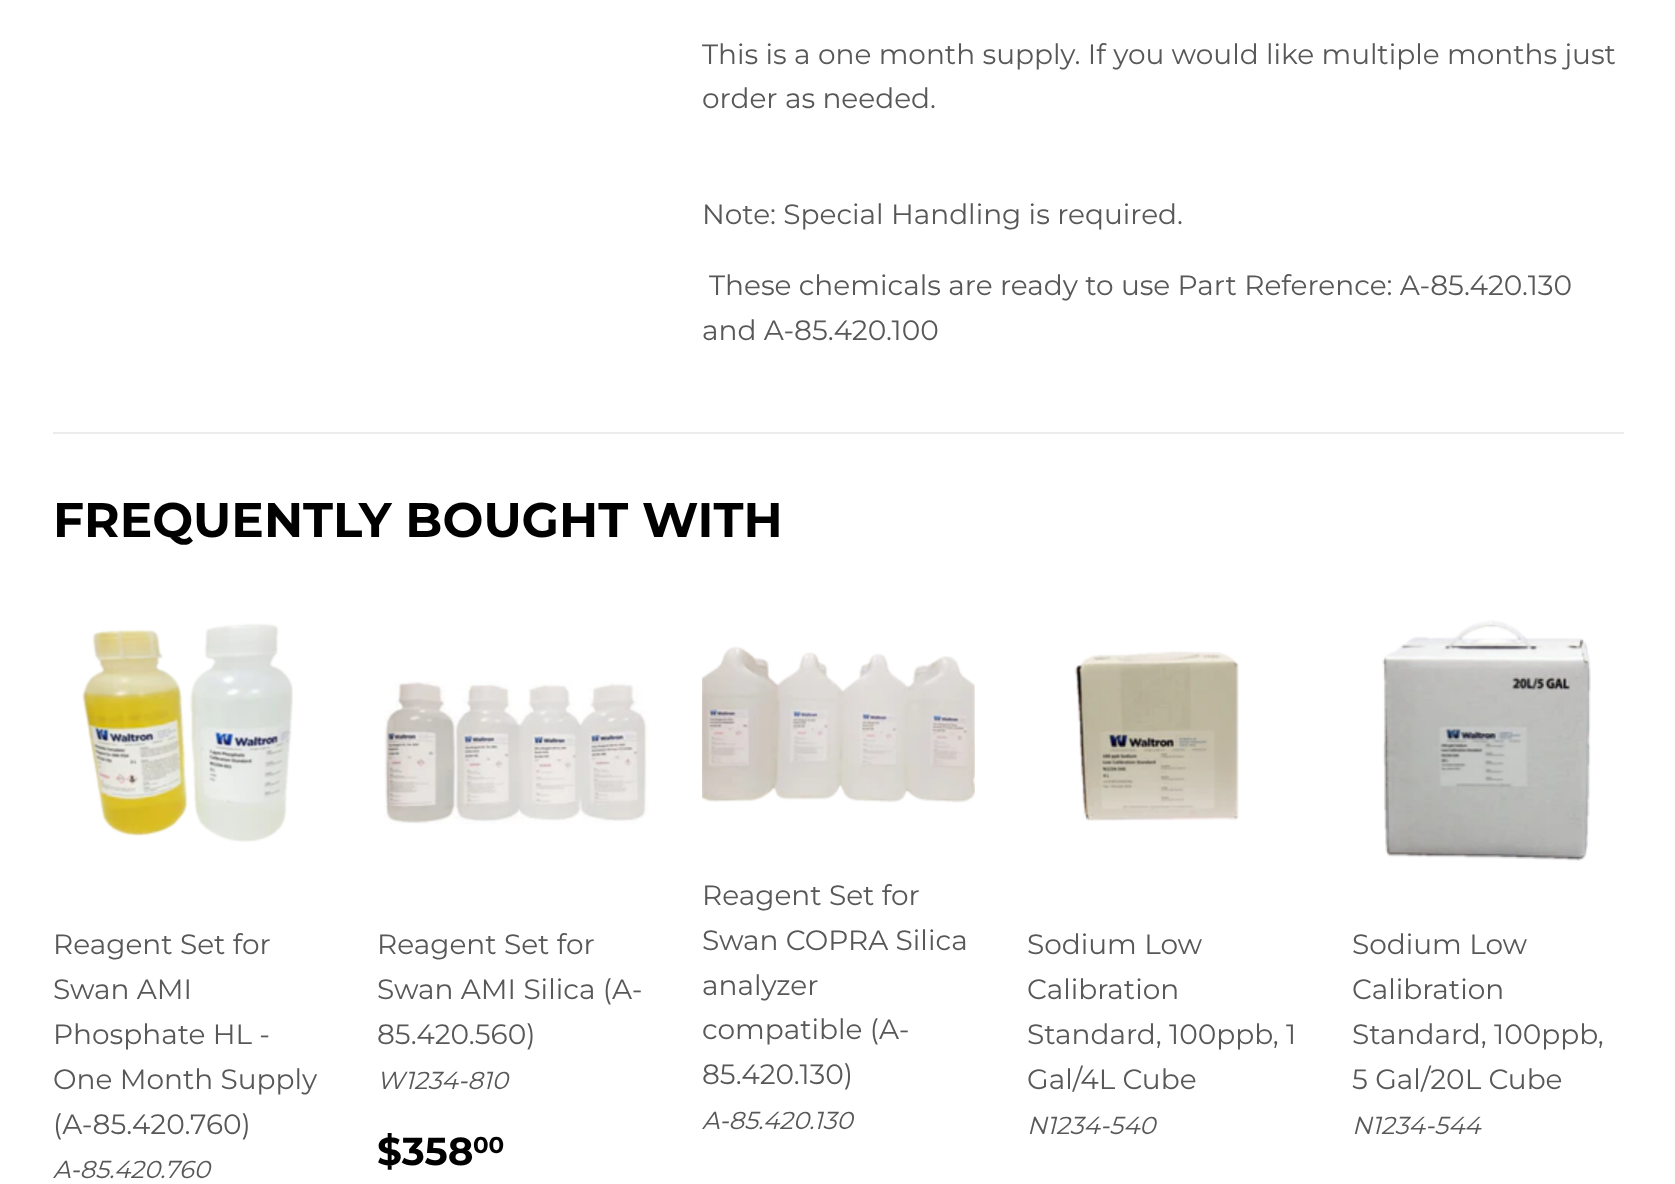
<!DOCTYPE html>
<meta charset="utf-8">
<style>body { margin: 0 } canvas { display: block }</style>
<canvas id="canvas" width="1675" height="1184"></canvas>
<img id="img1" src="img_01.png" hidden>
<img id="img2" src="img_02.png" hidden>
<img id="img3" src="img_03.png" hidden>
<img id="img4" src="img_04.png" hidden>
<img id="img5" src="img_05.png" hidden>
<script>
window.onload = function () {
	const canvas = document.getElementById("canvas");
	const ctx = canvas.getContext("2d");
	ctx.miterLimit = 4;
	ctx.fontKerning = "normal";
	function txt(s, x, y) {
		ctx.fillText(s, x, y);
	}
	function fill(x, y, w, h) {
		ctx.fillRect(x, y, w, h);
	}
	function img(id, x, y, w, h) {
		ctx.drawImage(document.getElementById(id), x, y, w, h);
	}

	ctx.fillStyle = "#FFFFFF";
	fill(0, 0, 1675, 1184);
	ctx.fillStyle = "#ECECEC";
	fill(53, 432, 1571, 2);
	img("img1", 82, 623, 211, 219);
	img("img2", 384, 681, 265, 143);
	img("img3", 702, 646, 273, 157);
	img("img4", 1074, 651, 165, 170);
	img("img5", 1382, 620, 209, 241);
	ctx.font = "28px Montserrat";
	ctx.fillStyle = "#585858";
	txt("This is a one month supply. If you would like multiple months just", 702, 64);
	txt("order as needed.", 702, 108);
	txt("Note: Special Handling is required.", 702, 224);
	txt("These chemicals are ready to use Part Reference: A-85.420.130", 709, 295);
	txt("and A-85.420.100", 702, 340);
	ctx.font = "bold 48.5px Montserrat";
	ctx.fillStyle = "#000000";
	txt("FREQUENTLY BOUGHT WITH", 53, 537);
	ctx.font = "28px Montserrat";
	ctx.fillStyle = "#585858";
	txt("Reagent Set for", 53, 954);
	txt("Swan AMI", 53, 999);
	txt("Phosphate HL -", 53, 1044);
	txt("One Month Supply", 53, 1089);
	txt("(A-85.420.760)", 53, 1134);
	ctx.font = "italic 24.5px Montserrat";
	txt("A-85.420.760", 53, 1178);
	ctx.font = "28px Montserrat";
	txt("Reagent Set for", 377, 954);
	txt("Swan AMI Silica (A-", 377, 999);
	txt("85.420.560)", 377, 1044);
	ctx.font = "italic 24.5px Montserrat";
	txt("W1234-810", 377, 1089);
	ctx.font = "bold 39px Montserrat";
	ctx.fillStyle = "#000000";
	txt("$358", 377, 1165);
	ctx.font = "bold 23px Montserrat";
	txt("00", 473, 1153);
	ctx.font = "28px Montserrat";
	ctx.fillStyle = "#585858";
	txt("Reagent Set for", 702, 905);
	txt("Swan COPRA Silica", 702, 950);
	txt("analyzer", 702, 995);
	txt("compatible (A-", 702, 1039);
	txt("85.420.130)", 702, 1084);
	ctx.font = "italic 24.5px Montserrat";
	txt("A-85.420.130", 702, 1129);
	ctx.font = "28px Montserrat";
	txt("Sodium Low", 1027, 954);
	txt("Calibration", 1027, 999);
	txt("Standard, 100ppb, 1", 1027, 1044);
	txt("Gal/4L Cube", 1027, 1089);
	ctx.font = "italic 24.5px Montserrat";
	txt("N1234-540", 1027, 1134);
	ctx.font = "28px Montserrat";
	txt("Sodium Low", 1352, 954);
	txt("Calibration", 1352, 999);
	txt("Standard, 100ppb,", 1352, 1044);
	txt("5 Gal/20L Cube", 1352, 1089);
	ctx.font = "italic 24.5px Montserrat";
	txt("N1234-544", 1352, 1134);
};
</script>
